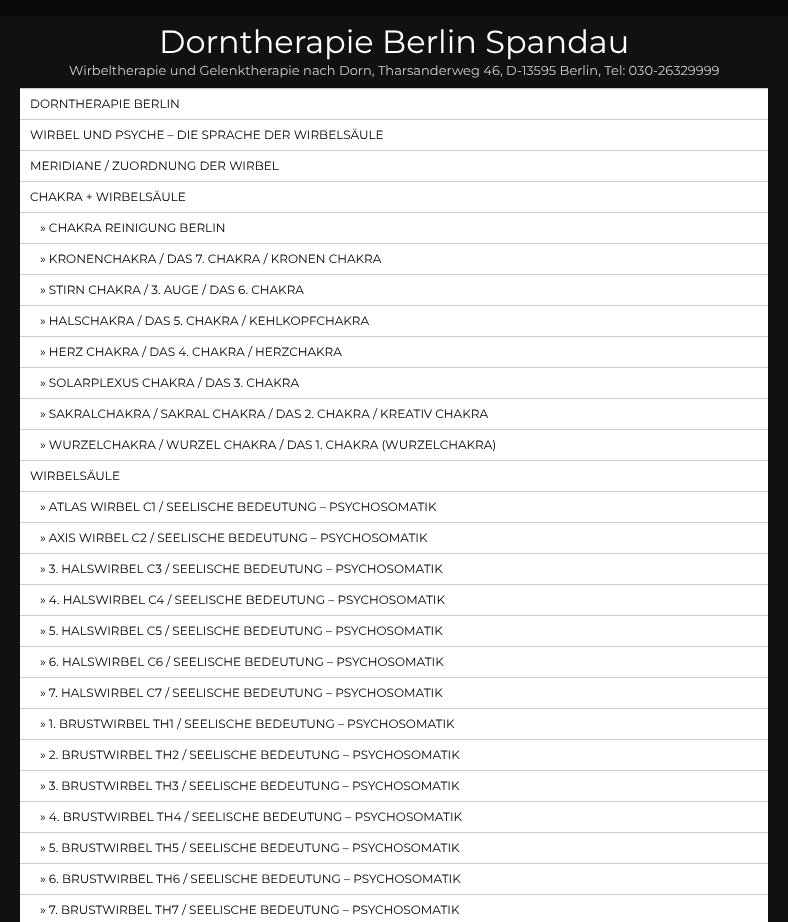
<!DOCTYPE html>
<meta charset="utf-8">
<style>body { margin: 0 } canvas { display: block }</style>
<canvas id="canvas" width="788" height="922"></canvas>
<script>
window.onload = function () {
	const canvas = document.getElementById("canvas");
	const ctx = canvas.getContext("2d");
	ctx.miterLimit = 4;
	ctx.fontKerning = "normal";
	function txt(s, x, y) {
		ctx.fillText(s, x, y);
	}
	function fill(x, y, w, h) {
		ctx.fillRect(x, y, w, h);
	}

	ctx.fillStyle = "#111111";
	fill(0, 0, 788, 922);
	ctx.fillStyle = "#090909";
	fill(0, 0, 788, 16);
	ctx.fillStyle = "#FFFFFF";
	fill(20, 89, 748, 833);
	ctx.fillStyle = "#CCCCCC";
	fill(20, 88, 748, 1);
	fill(20, 119, 748, 1);
	fill(20, 150, 748, 1);
	fill(20, 181, 748, 1);
	fill(20, 212, 748, 1);
	fill(20, 243, 748, 1);
	fill(20, 274, 748, 1);
	fill(20, 305, 748, 1);
	fill(20, 336, 748, 1);
	fill(20, 367, 748, 1);
	fill(20, 398, 748, 1);
	fill(20, 429, 748, 1);
	fill(20, 460, 748, 1);
	fill(20, 491, 748, 1);
	fill(20, 522, 748, 1);
	fill(20, 553, 748, 1);
	fill(20, 584, 748, 1);
	fill(20, 615, 748, 1);
	fill(20, 646, 748, 1);
	fill(20, 677, 748, 1);
	fill(20, 708, 748, 1);
	fill(20, 739, 748, 1);
	fill(20, 770, 748, 1);
	fill(20, 801, 748, 1);
	fill(20, 832, 748, 1);
	fill(20, 863, 748, 1);
	fill(20, 894, 748, 1);
	ctx.font = "32px Montserrat";
	ctx.fillStyle = "#FFFFFF";
	txt("Dorntherapie Berlin Spandau", 159, 53);
	ctx.font = "13px Montserrat";
	ctx.fillStyle = "#CCCCCC";
	txt("Wirbeltherapie und Gelenktherapie nach Dorn, Tharsanderweg 46, D-13595 Berlin, Tel: 030-26329999", 69, 75);
	ctx.font = "12px Montserrat";
	ctx.fillStyle = "#000000";
	txt("DORNTHERAPIE BERLIN", 30, 108);
	txt("WIRBEL UND PSYCHE – DIE SPRACHE DER WIRBELSÄULE", 30, 139);
	txt("MERIDIANE / ZUORDNUNG DER WIRBEL", 30, 170);
	txt("CHAKRA + WIRBELSÄULE", 30, 201);
	txt("» CHAKRA REINIGUNG BERLIN", 40, 232);
	txt("» KRONENCHAKRA / DAS 7. CHAKRA / KRONEN CHAKRA", 40, 263);
	txt("» STIRN CHAKRA / 3. AUGE / DAS 6. CHAKRA", 40, 294);
	txt("» HALSCHAKRA / DAS 5. CHAKRA / KEHLKOPFCHAKRA", 40, 325);
	txt("» HERZ CHAKRA / DAS 4. CHAKRA / HERZCHAKRA", 40, 356);
	txt("» SOLARPLEXUS CHAKRA / DAS 3. CHAKRA", 40, 387);
	txt("» SAKRALCHAKRA / SAKRAL CHAKRA / DAS 2. CHAKRA / KREATIV CHAKRA", 40, 418);
	txt("» WURZELCHAKRA / WURZEL CHAKRA / DAS 1. CHAKRA (WURZELCHAKRA)", 40, 449);
	txt("WIRBELSÄULE", 30, 480);
	txt("» ATLAS WIRBEL C1 / SEELISCHE BEDEUTUNG – PSYCHOSOMATIK", 40, 511);
	txt("» AXIS WIRBEL C2 / SEELISCHE BEDEUTUNG – PSYCHOSOMATIK", 40, 542);
	txt("» 3. HALSWIRBEL C3 / SEELISCHE BEDEUTUNG – PSYCHOSOMATIK", 40, 573);
	txt("» 4. HALSWIRBEL C4 / SEELISCHE BEDEUTUNG – PSYCHOSOMATIK", 40, 604);
	txt("» 5. HALSWIRBEL C5 / SEELISCHE BEDEUTUNG – PSYCHOSOMATIK", 40, 635);
	txt("» 6. HALSWIRBEL C6 / SEELISCHE BEDEUTUNG – PSYCHOSOMATIK", 40, 666);
	txt("» 7. HALSWIRBEL C7 / SEELISCHE BEDEUTUNG – PSYCHOSOMATIK", 40, 697);
	txt("» 1. BRUSTWIRBEL TH1 / SEELISCHE BEDEUTUNG – PSYCHOSOMATIK", 40, 728);
	txt("» 2. BRUSTWIRBEL TH2 / SEELISCHE BEDEUTUNG – PSYCHOSOMATIK", 40, 759);
	txt("» 3. BRUSTWIRBEL TH3 / SEELISCHE BEDEUTUNG – PSYCHOSOMATIK", 40, 790);
	txt("» 4. BRUSTWIRBEL TH4 / SEELISCHE BEDEUTUNG – PSYCHOSOMATIK", 40, 821);
	txt("» 5. BRUSTWIRBEL TH5 / SEELISCHE BEDEUTUNG – PSYCHOSOMATIK", 40, 852);
	txt("» 6. BRUSTWIRBEL TH6 / SEELISCHE BEDEUTUNG – PSYCHOSOMATIK", 40, 883);
	txt("» 7. BRUSTWIRBEL TH7 / SEELISCHE BEDEUTUNG – PSYCHOSOMATIK", 40, 914);
};
</script>
